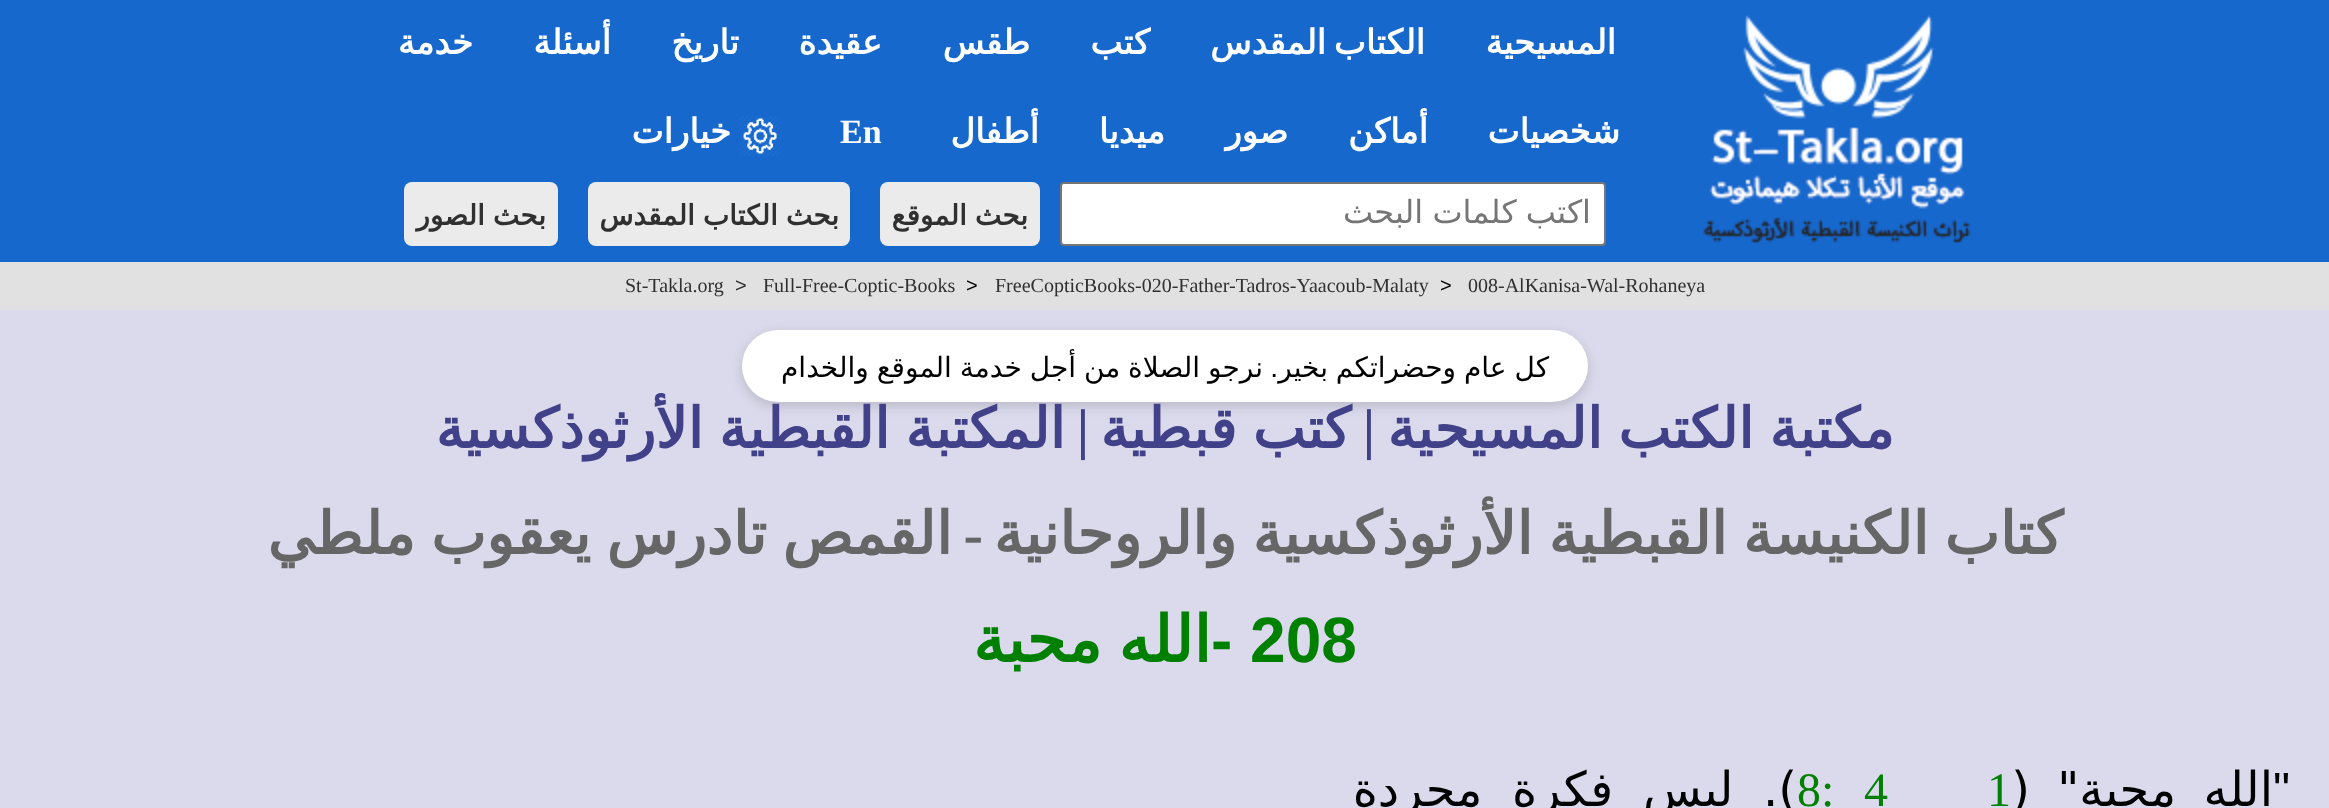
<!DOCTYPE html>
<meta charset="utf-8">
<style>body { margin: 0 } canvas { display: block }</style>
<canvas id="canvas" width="2329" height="808"></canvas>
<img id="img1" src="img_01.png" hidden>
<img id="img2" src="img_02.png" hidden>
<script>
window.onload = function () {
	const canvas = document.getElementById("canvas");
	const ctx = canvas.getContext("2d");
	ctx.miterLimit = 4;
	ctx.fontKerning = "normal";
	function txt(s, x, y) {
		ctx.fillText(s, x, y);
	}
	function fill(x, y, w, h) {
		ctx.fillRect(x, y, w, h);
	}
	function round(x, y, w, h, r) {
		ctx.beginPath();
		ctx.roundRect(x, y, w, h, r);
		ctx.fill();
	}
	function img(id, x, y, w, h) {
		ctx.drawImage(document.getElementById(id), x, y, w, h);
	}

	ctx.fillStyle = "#DBDAEC";
	fill(0, 0, 2329, 808);
	ctx.fillStyle = "#1668CD";
	fill(0, 0, 2329, 262);
	img("img1", 1703, 15, 268, 229);
	img("img2", 740, 116, 40, 40);
	ctx.fillStyle = "#FFFFFF";
	ctx.beginPath();
	ctx.roundRect(1061, 183, 544, 62, 3);
	ctx.fill();
	ctx.strokeStyle = "#767676";
	ctx.lineWidth = 2;
	ctx.stroke();
	ctx.fillStyle = "#EBEBEB";
	round(880, 182, 160, 64, 8);
	round(588, 182, 262, 64, 8);
	round(404, 182, 154, 64, 8);
	ctx.fillStyle = "#E1E1E1";
	fill(0, 262, 2329, 48);
	ctx.fillStyle = "rgba(0, 0, 0, 0.15)";
	ctx.filter = "blur(6px)";
	ctx.beginPath();
	ctx.roundRect(742, 334, 846, 72, 36);
	ctx.fill();
	ctx.filter = "none";
	ctx.direction = "rtl";
	ctx.font = "bold 34px DejaVu Sans";
	ctx.fillStyle = "#FFFFFF";
	txt("المسيحية", 1616, 54);
	txt("الكتاب", 1425, 54);
	txt("المقدس", 1326, 54);
	txt("كتب", 1150, 54);
	txt("طقس", 1030, 54);
	txt("عقيدة", 882, 54);
	txt("تاريخ", 739, 54);
	txt("أسئلة", 611, 54);
	txt("خدمة", 473, 54);
	txt("شخصيات", 1620, 143);
	txt("أماكن", 1428, 143);
	txt("صور", 1288, 143);
	txt("ميديا", 1165, 143);
	txt("أطفال", 1039, 143);
	ctx.direction = "ltr";
	ctx.font = "bold 34px Liberation Serif";
	txt("En", 840, 143);
	ctx.direction = "rtl";
	ctx.font = "bold 34px DejaVu Sans";
	txt("خيارات", 731, 143);
	ctx.wordSpacing = "-1px";
	ctx.font = "32px DejaVu Sans";
	ctx.fillStyle = "#757575";
	txt("اكتب كلمات البحث", 1591, 223);
	ctx.font = "bold 28px DejaVu Sans";
	ctx.fillStyle = "#303030";
	txt("بحث الموقع", 1028, 225);
	txt("بحث الكتاب المقدس", 839, 225);
	txt("بحث الصور", 546, 225);
	ctx.wordSpacing = "0px";
	ctx.direction = "ltr";
	ctx.font = "20px Liberation Serif";
	txt("008-AlKanisa-Wal-Rohaneya", 1468, 292);
	ctx.font = "20px Liberation Sans";
	ctx.fillStyle = "#000000";
	txt(">", 1440, 292);
	ctx.font = "20px Liberation Serif";
	ctx.fillStyle = "#303030";
	txt("FreeCopticBooks-020-Father-Tadros-Yaacoub-Malaty", 995, 292);
	ctx.font = "20px Liberation Sans";
	ctx.fillStyle = "#000000";
	txt(">", 966, 292);
	ctx.font = "20px Liberation Serif";
	ctx.fillStyle = "#303030";
	txt("Full-Free-Coptic-Books", 763, 292);
	ctx.font = "20px Liberation Sans";
	txt(">", 735, 292);
	ctx.font = "20px Liberation Serif";
	txt("St-Takla.org", 625, 292);
	ctx.wordSpacing = "-2px";
	ctx.direction = "rtl";
	ctx.font = "bold 56px DejaVu Sans";
	ctx.fillStyle = "#414189";
	txt("مكتبة الكتب المسيحية", 1894, 448);
	ctx.wordSpacing = "0px";
	ctx.font = "bold 56px Liberation Serif";
	txt("|", 1375, 448);
	ctx.wordSpacing = "-2px";
	ctx.font = "bold 56px DejaVu Sans";
	txt("كتب قبطية", 1351, 448);
	ctx.wordSpacing = "0px";
	ctx.font = "bold 56px Liberation Serif";
	txt("|", 1089, 448);
	ctx.wordSpacing = "-2px";
	ctx.font = "bold 56px DejaVu Sans";
	txt("المكتبة القبطية الأرثوذكسية", 1065, 448);
	ctx.fillStyle = "#FFFFFF";
	round(742, 330, 846, 72, 36);
	ctx.wordSpacing = "-1px";
	ctx.font = "28px DejaVu Sans";
	ctx.fillStyle = "#000000";
	txt("كل عام وحضراتكم بخير", 1549, 377);
	ctx.wordSpacing = "0px";
	ctx.font = "28px Liberation Sans";
	txt(".", 1278, 377);
	ctx.wordSpacing = "-1px";
	ctx.font = "28px DejaVu Sans";
	txt("نرجو الصلاة من أجل خدمة الموقع والخدام", 1263, 377);
	ctx.wordSpacing = "-3px";
	ctx.font = "bold 58.7px DejaVu Sans";
	ctx.fillStyle = "#666666";
	txt("كتاب الكنيسة القبطية الأرثوذكسية والروحانية", 2063, 554);
	ctx.wordSpacing = "0px";
	ctx.font = "bold 58.7px Liberation Serif";
	txt("-", 983, 554);
	ctx.wordSpacing = "-3px";
	ctx.font = "bold 58.7px DejaVu Sans";
	txt("القمص تادرس يعقوب ملطي", 952, 554);
	ctx.wordSpacing = "0px";
	ctx.direction = "ltr";
	ctx.font = "bold 64px Liberation Sans";
	ctx.fillStyle = "#008000";
	txt("- 208", 1211, 662);
	ctx.wordSpacing = "-4px";
	ctx.direction = "rtl";
	ctx.font = "bold 64px DejaVu Sans";
	txt("الله محبة", 1211, 662);
	ctx.wordSpacing = "0px";
	ctx.direction = "ltr";
	ctx.font = "48px Liberation Sans";
	ctx.fillStyle = "#000000";
	txt("\"", 2273, 806);
	ctx.wordSpacing = "12px";
	ctx.direction = "rtl";
	ctx.font = "48px DejaVu Sans";
	txt("الله محبة\" (", 2273, 806);
	ctx.wordSpacing = "0px";
	ctx.direction = "ltr";
	ctx.font = "48px Liberation Serif";
	ctx.fillStyle = "#008000";
	txt("1", 1987, 806);
	txt("4", 1864, 806);
	txt("8:", 1797, 806);
	ctx.wordSpacing = "14.5px";
	ctx.direction = "rtl";
	ctx.font = "48px DejaVu Sans";
	ctx.fillStyle = "#000000";
	txt("). ليس فكرة مجردة", 1797, 806);
};
</script>
